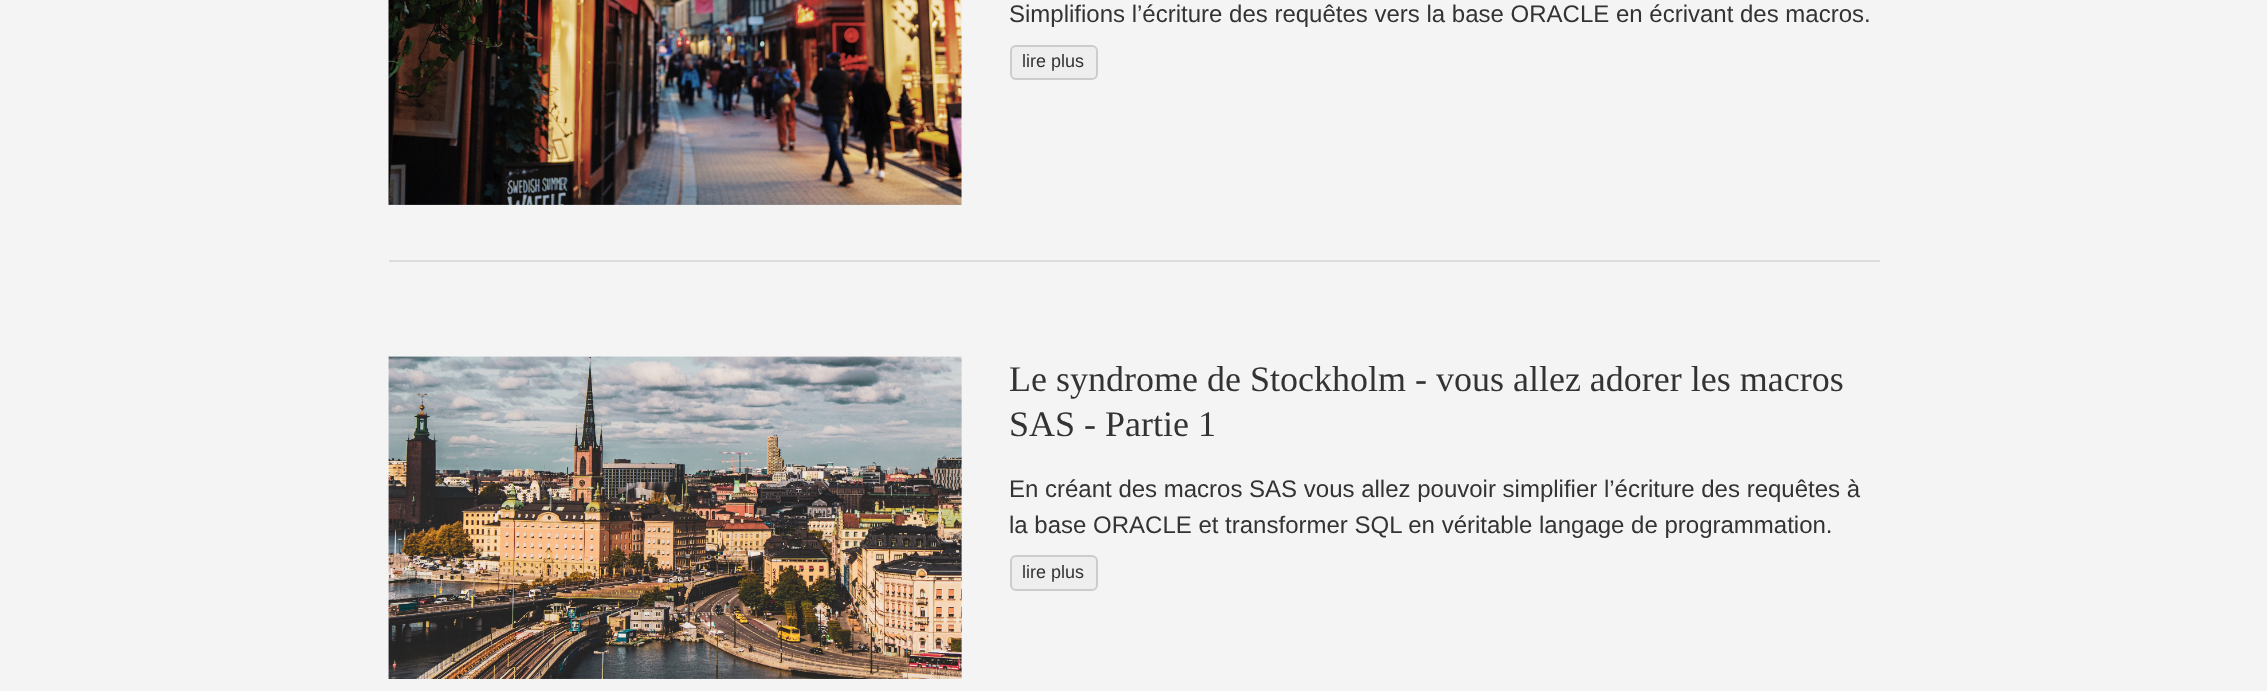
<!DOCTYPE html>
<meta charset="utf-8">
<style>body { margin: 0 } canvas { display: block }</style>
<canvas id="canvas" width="2267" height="691"></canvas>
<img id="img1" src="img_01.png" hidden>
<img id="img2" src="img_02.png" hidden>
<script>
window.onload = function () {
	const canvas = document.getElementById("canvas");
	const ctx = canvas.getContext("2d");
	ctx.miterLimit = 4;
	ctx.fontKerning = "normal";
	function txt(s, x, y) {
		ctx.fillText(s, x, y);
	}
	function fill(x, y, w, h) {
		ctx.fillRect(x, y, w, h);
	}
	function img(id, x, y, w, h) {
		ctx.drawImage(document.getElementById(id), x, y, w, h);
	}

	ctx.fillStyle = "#F4F4F4";
	fill(0, 0, 2267, 691);
	ctx.fillStyle = "#DCDCDC";
	fill(389, 260, 1491, 2);
	img("img1", 388, 0, 574, 205);
	ctx.fillStyle = "#EEEEEE";
	ctx.beginPath();
	ctx.roundRect(1011, 46, 86, 33, 5);
	ctx.fill();
	ctx.strokeStyle = "#CCCCCC";
	ctx.lineWidth = 2;
	ctx.stroke();
	img("img2", 388, 356, 574, 323);
	ctx.beginPath();
	ctx.roundRect(1011, 556, 86, 34, 5);
	ctx.fill();
	ctx.stroke();
	ctx.font = "24px Liberation Sans";
	ctx.fillStyle = "#333333";
	txt("Simplifions l’écriture des requêtes vers la base ORACLE en écrivant des macros.", 1009, 22);
	ctx.font = "18px Liberation Sans";
	txt("lire plus", 1022, 67);
	ctx.font = "36px Liberation Serif";
	txt("Le syndrome de Stockholm - vous allez adorer les macros", 1009, 391);
	txt("SAS - Partie 1", 1009, 436);
	ctx.font = "24px Liberation Sans";
	txt("En créant des macros SAS vous allez pouvoir simplifier l’écriture des requêtes à", 1009, 497);
	txt("la base ORACLE et transformer SQL en véritable langage de programmation.", 1009, 533);
	ctx.font = "18px Liberation Sans";
	txt("lire plus", 1022, 578);
};
</script>
